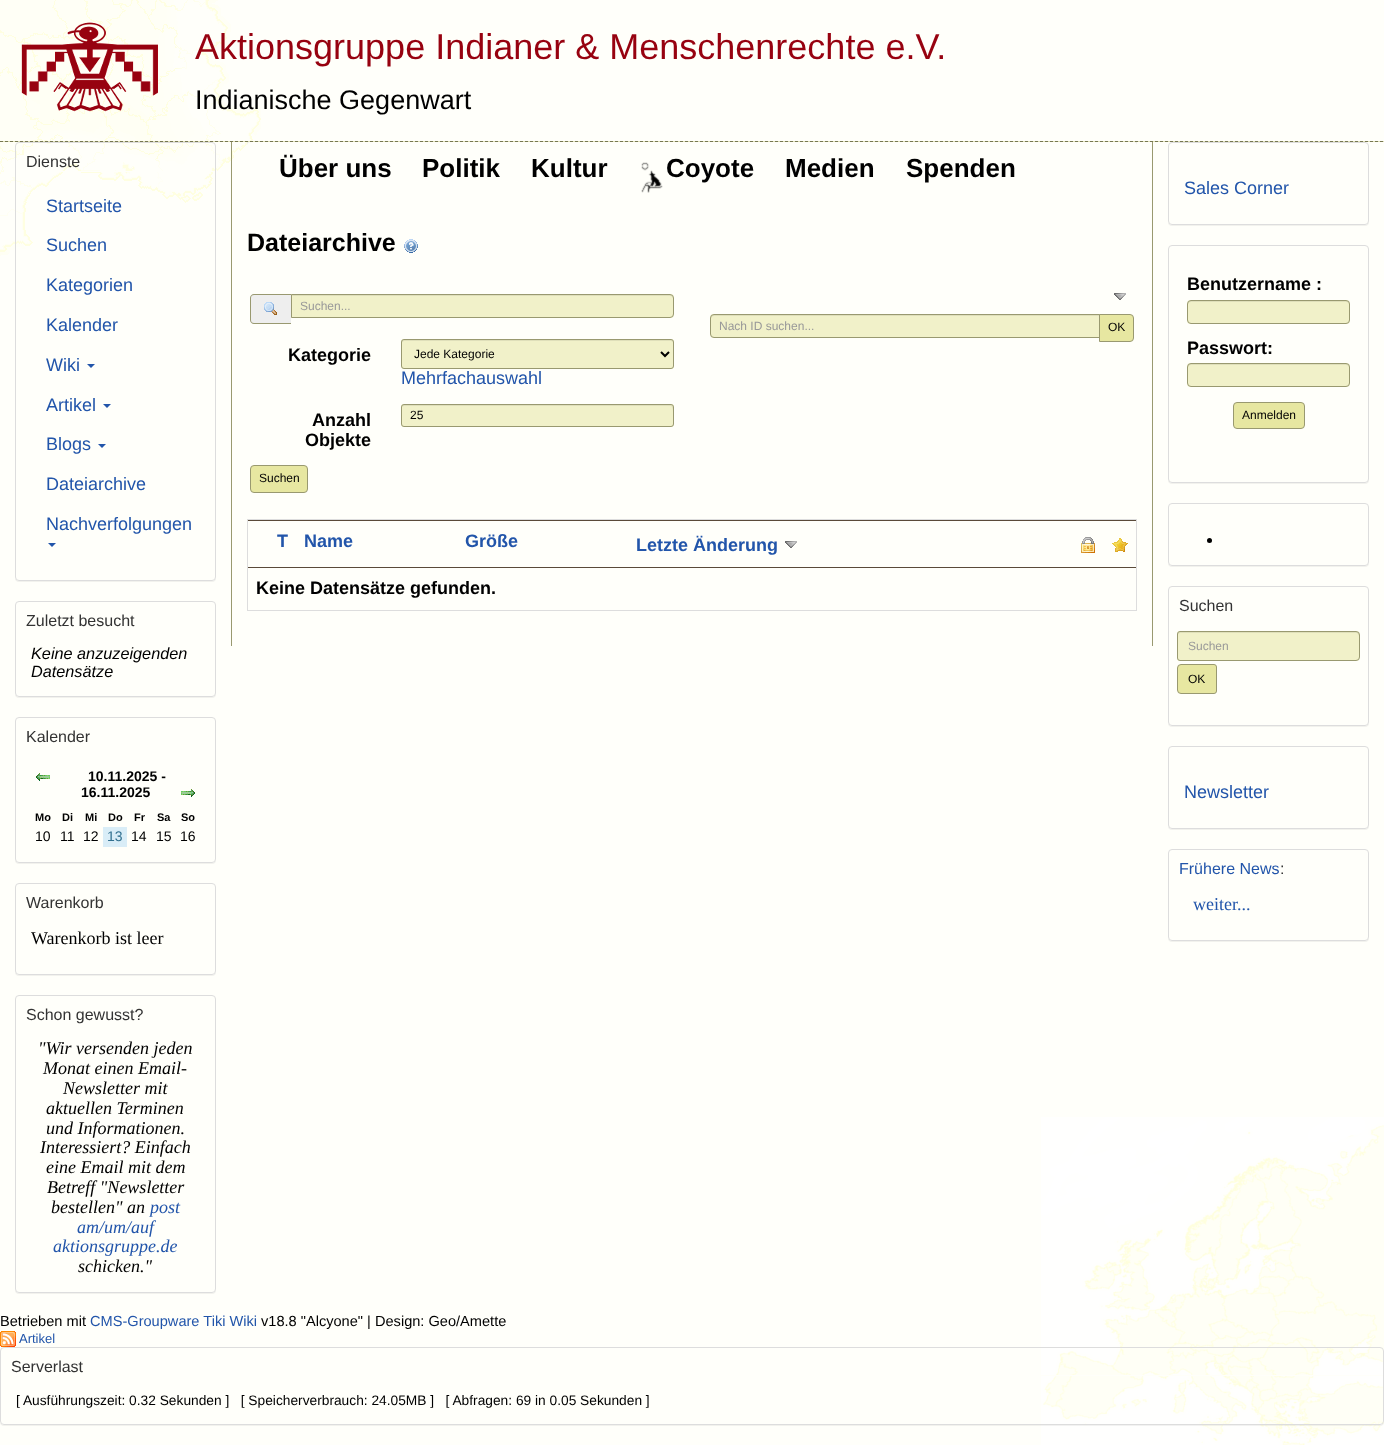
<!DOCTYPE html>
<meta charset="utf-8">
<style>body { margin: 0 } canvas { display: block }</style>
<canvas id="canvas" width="1384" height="1445"></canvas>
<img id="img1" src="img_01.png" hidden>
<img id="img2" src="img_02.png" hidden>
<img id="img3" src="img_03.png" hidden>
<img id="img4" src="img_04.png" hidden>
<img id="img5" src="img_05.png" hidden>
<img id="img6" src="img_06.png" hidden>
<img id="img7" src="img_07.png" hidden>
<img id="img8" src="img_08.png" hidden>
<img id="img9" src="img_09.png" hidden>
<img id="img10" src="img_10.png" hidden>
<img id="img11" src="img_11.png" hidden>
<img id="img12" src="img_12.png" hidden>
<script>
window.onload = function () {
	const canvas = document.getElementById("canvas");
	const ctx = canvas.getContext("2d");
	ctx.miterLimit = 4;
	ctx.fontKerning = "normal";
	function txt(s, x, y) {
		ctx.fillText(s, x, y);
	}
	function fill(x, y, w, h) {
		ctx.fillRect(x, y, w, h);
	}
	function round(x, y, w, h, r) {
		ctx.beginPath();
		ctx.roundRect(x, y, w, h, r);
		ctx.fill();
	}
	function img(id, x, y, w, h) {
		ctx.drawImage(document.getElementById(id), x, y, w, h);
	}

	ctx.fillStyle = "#FFFFFA";
	fill(0, 0, 1384, 1445);
	img("img1", 1041, 1117, 343, 328);
	img("img2", 0, 0, 261, 256);
	img("img3", 21, 22, 137, 90);
	ctx.fillStyle = "#E0E1B8";
	fill(0, 141, 1384, 1);
	ctx.beginPath();
	ctx.moveTo(0, 141.5);
	ctx.lineTo(1384, 141.5);
	ctx.strokeStyle = "#777750";
	ctx.setLineDash([3, 2]);
	ctx.stroke();
	ctx.save();
	ctx.beginPath();
	ctx.moveTo(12, 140);
	ctx.lineTo(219, 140);
	ctx.lineTo(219, 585);
	ctx.lineTo(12, 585);
	ctx.closePath();
	ctx.moveTo(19, 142);
	ctx.lineTo(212, 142);
	ctx.bezierCurveTo(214, 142, 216, 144, 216, 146);
	ctx.lineTo(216, 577);
	ctx.bezierCurveTo(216, 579, 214, 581, 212, 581);
	ctx.lineTo(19, 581);
	ctx.bezierCurveTo(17, 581, 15, 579, 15, 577);
	ctx.lineTo(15, 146);
	ctx.bezierCurveTo(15, 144, 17, 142, 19, 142);
	ctx.closePath();
	ctx.clip("evenodd");
	ctx.fillStyle = "rgba(0, 0, 0, 0.05)";
	ctx.filter = "blur(0.5px)";
	ctx.beginPath();
	ctx.roundRect(15, 143, 201, 439, 4);
	ctx.fill();
	ctx.filter = "none";
	ctx.restore();
	ctx.beginPath();
	ctx.roundRect(15.5, 142.5, 200, 438, 3.5);
	ctx.strokeStyle = "#DDDDDD";
	ctx.setLineDash([]);
	ctx.stroke();
	ctx.fillStyle = "#FFFFFA";
	fill(61, 171, 154, 1);
	ctx.fillStyle = "#2255AA";
	ctx.beginPath();
	ctx.moveTo(87, 364);
	ctx.lineTo(95, 364);
	ctx.lineTo(91, 368);
	ctx.closePath();
	ctx.fill();
	ctx.beginPath();
	ctx.moveTo(103, 404);
	ctx.lineTo(111, 404);
	ctx.lineTo(107, 408);
	ctx.closePath();
	ctx.fill();
	ctx.beginPath();
	ctx.moveTo(98, 444);
	ctx.lineTo(106, 444);
	ctx.lineTo(102, 448);
	ctx.closePath();
	ctx.fill();
	ctx.beginPath();
	ctx.moveTo(48, 543);
	ctx.lineTo(56, 543);
	ctx.lineTo(52, 547);
	ctx.closePath();
	ctx.fill();
	ctx.save();
	ctx.beginPath();
	ctx.moveTo(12, 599);
	ctx.lineTo(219, 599);
	ctx.lineTo(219, 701);
	ctx.lineTo(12, 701);
	ctx.closePath();
	ctx.moveTo(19, 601);
	ctx.lineTo(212, 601);
	ctx.bezierCurveTo(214, 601, 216, 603, 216, 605);
	ctx.lineTo(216, 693);
	ctx.bezierCurveTo(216, 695, 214, 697, 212, 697);
	ctx.lineTo(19, 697);
	ctx.bezierCurveTo(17, 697, 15, 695, 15, 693);
	ctx.lineTo(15, 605);
	ctx.bezierCurveTo(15, 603, 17, 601, 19, 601);
	ctx.closePath();
	ctx.clip("evenodd");
	ctx.fillStyle = "rgba(0, 0, 0, 0.05)";
	ctx.filter = "blur(0.5px)";
	ctx.beginPath();
	ctx.roundRect(15, 602, 201, 96, 4);
	ctx.fill();
	ctx.filter = "none";
	ctx.restore();
	ctx.beginPath();
	ctx.roundRect(15.5, 601.5, 200, 95, 3.5);
	ctx.stroke();
	ctx.save();
	ctx.beginPath();
	ctx.moveTo(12, 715);
	ctx.lineTo(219, 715);
	ctx.lineTo(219, 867);
	ctx.lineTo(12, 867);
	ctx.closePath();
	ctx.moveTo(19, 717);
	ctx.lineTo(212, 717);
	ctx.bezierCurveTo(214, 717, 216, 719, 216, 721);
	ctx.lineTo(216, 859);
	ctx.bezierCurveTo(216, 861, 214, 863, 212, 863);
	ctx.lineTo(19, 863);
	ctx.bezierCurveTo(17, 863, 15, 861, 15, 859);
	ctx.lineTo(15, 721);
	ctx.bezierCurveTo(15, 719, 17, 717, 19, 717);
	ctx.closePath();
	ctx.clip("evenodd");
	ctx.fillStyle = "rgba(0, 0, 0, 0.05)";
	ctx.filter = "blur(0.5px)";
	ctx.beginPath();
	ctx.roundRect(15, 718, 201, 146, 4);
	ctx.fill();
	ctx.filter = "none";
	ctx.restore();
	ctx.beginPath();
	ctx.roundRect(15.5, 717.5, 200, 145, 3.5);
	ctx.stroke();
	img("img4", 36, 773, 14, 8);
	img("img5", 181, 789, 14, 8);
	ctx.fillStyle = "#D9EDF7";
	fill(103, 827, 24, 20);
	ctx.save();
	ctx.beginPath();
	ctx.moveTo(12, 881);
	ctx.lineTo(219, 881);
	ctx.lineTo(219, 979);
	ctx.lineTo(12, 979);
	ctx.closePath();
	ctx.moveTo(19, 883);
	ctx.lineTo(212, 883);
	ctx.bezierCurveTo(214, 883, 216, 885, 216, 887);
	ctx.lineTo(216, 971);
	ctx.bezierCurveTo(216, 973, 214, 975, 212, 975);
	ctx.lineTo(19, 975);
	ctx.bezierCurveTo(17, 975, 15, 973, 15, 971);
	ctx.lineTo(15, 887);
	ctx.bezierCurveTo(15, 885, 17, 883, 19, 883);
	ctx.closePath();
	ctx.clip("evenodd");
	ctx.fillStyle = "rgba(0, 0, 0, 0.05)";
	ctx.filter = "blur(0.5px)";
	ctx.beginPath();
	ctx.roundRect(15, 884, 201, 92, 4);
	ctx.fill();
	ctx.filter = "none";
	ctx.restore();
	ctx.beginPath();
	ctx.roundRect(15.5, 883.5, 200, 91, 3.5);
	ctx.stroke();
	ctx.save();
	ctx.beginPath();
	ctx.moveTo(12, 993);
	ctx.lineTo(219, 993);
	ctx.lineTo(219, 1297);
	ctx.lineTo(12, 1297);
	ctx.closePath();
	ctx.moveTo(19, 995);
	ctx.lineTo(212, 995);
	ctx.bezierCurveTo(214, 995, 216, 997, 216, 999);
	ctx.lineTo(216, 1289);
	ctx.bezierCurveTo(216, 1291, 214, 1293, 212, 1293);
	ctx.lineTo(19, 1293);
	ctx.bezierCurveTo(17, 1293, 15, 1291, 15, 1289);
	ctx.lineTo(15, 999);
	ctx.bezierCurveTo(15, 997, 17, 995, 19, 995);
	ctx.closePath();
	ctx.clip("evenodd");
	ctx.fillStyle = "rgba(0, 0, 0, 0.05)";
	ctx.filter = "blur(0.5px)";
	ctx.beginPath();
	ctx.roundRect(15, 996, 201, 298, 4);
	ctx.fill();
	ctx.filter = "none";
	ctx.restore();
	ctx.beginPath();
	ctx.roundRect(15.5, 995.5, 200, 297, 3.5);
	ctx.stroke();
	ctx.fillStyle = "#999970";
	fill(1152, 142, 1, 504);
	fill(231, 142, 1, 504);
	ctx.fillStyle = "#F0F0E9";
	fill(247, 142, 890, 4);
	ctx.fillStyle = "#FFFFFA";
	round(247, 142, 890, 57, 4);
	img("img6", 641, 162, 22, 31);
	img("img7", 404, 239, 14, 14);
	img("img8", 1114, 293, 12, 7);
	ctx.fillStyle = "#EEEEEE";
	ctx.beginPath();
	ctx.roundRect(250, 294, 41, 30, [4, 0, 0, 4]);
	ctx.fill();
	ctx.fillStyle = "#999970";
	ctx.beginPath();
	ctx.moveTo(254, 294);
	ctx.lineTo(291, 294);
	ctx.lineTo(291, 324);
	ctx.lineTo(254, 324);
	ctx.bezierCurveTo(252, 324, 250, 322, 250, 320);
	ctx.lineTo(250, 298);
	ctx.bezierCurveTo(250, 296, 252, 294, 254, 294);
	ctx.closePath();
	ctx.moveTo(254, 295);
	ctx.lineTo(291, 295);
	ctx.lineTo(291, 323);
	ctx.lineTo(254, 323);
	ctx.bezierCurveTo(252, 323, 251, 322, 251, 320);
	ctx.lineTo(251, 298);
	ctx.bezierCurveTo(251, 296, 252, 295, 254, 295);
	ctx.closePath();
	ctx.fill("evenodd");
	img("img9", 264, 302, 13, 13);
	ctx.fillStyle = "#F1F1C9";
	ctx.beginPath();
	ctx.roundRect(291, 294, 383, 24, [0, 4, 4, 0]);
	ctx.fill();
	ctx.fillStyle = "#DFDFBA";
	ctx.beginPath();
	ctx.moveTo(292, 296);
	ctx.lineTo(670, 296);
	ctx.bezierCurveTo(672, 296, 673, 297, 673, 299);
	ctx.lineTo(673, 298);
	ctx.bezierCurveTo(673, 296, 672, 295, 670, 295);
	ctx.lineTo(292, 295);
	ctx.closePath();
	ctx.fill();
	ctx.beginPath();
	ctx.roundRect(291.5, 294.5, 382, 23, [0, 3.5, 3.5, 0]);
	ctx.strokeStyle = "#999970";
	ctx.stroke();
	ctx.fillStyle = "#F1F1C9";
	round(401, 339, 273, 30, 3);
	ctx.fillStyle = "#DFDFBA";
	ctx.beginPath();
	ctx.moveTo(404, 341);
	ctx.lineTo(671, 341);
	ctx.bezierCurveTo(672, 341, 673, 342, 673, 343);
	ctx.bezierCurveTo(673, 342, 673, 340, 671, 340);
	ctx.lineTo(404, 340);
	ctx.lineTo(402, 341);
	ctx.lineTo(402, 343);
	ctx.bezierCurveTo(402, 342, 403, 341, 404, 341);
	ctx.closePath();
	ctx.fill();
	ctx.beginPath();
	ctx.roundRect(401.5, 339.5, 272, 29, 2.5);
	ctx.stroke();
	ctx.beginPath();
	ctx.moveTo(661, 352);
	ctx.lineTo(665, 356);
	ctx.lineTo(669, 352);
	ctx.strokeStyle = "#000000";
	ctx.lineWidth = 2;
	ctx.stroke();
	ctx.fillStyle = "#F1F1C9";
	round(401, 404, 273, 23, 3);
	ctx.fillStyle = "#DFDFBA";
	ctx.beginPath();
	ctx.moveTo(404, 406);
	ctx.lineTo(671, 406);
	ctx.bezierCurveTo(672, 406, 673, 409, 673, 412);
	ctx.bezierCurveTo(673, 411, 674, 405, 671, 405);
	ctx.lineTo(403, 405);
	ctx.lineTo(402, 407);
	ctx.bezierCurveTo(402, 407, 403, 406, 404, 406);
	ctx.closePath();
	ctx.fill();
	ctx.beginPath();
	ctx.roundRect(401.5, 404.5, 272, 22, 2.5);
	ctx.strokeStyle = "#999970";
	ctx.lineWidth = 1;
	ctx.stroke();
	ctx.fillStyle = "#E7E7A1";
	ctx.beginPath();
	ctx.roundRect(250.5, 465.5, 57, 27, 3.5);
	ctx.fill();
	ctx.stroke();
	ctx.fillStyle = "#F1F1C9";
	ctx.beginPath();
	ctx.roundRect(710, 314, 390, 24, [4, 0, 0, 4]);
	ctx.fill();
	ctx.fillStyle = "#DFDFBA";
	ctx.beginPath();
	ctx.moveTo(714, 316);
	ctx.lineTo(1099, 316);
	ctx.lineTo(1099, 315);
	ctx.lineTo(714, 315);
	ctx.bezierCurveTo(712, 315, 711, 316, 711, 318);
	ctx.lineTo(711, 319);
	ctx.bezierCurveTo(711, 317, 712, 316, 714, 316);
	ctx.closePath();
	ctx.fill();
	ctx.beginPath();
	ctx.roundRect(710.5, 314.5, 389, 23, [3.5, 0, 0, 3.5]);
	ctx.stroke();
	ctx.fillStyle = "#E7E7A1";
	ctx.beginPath();
	ctx.roundRect(1099.5, 314.5, 34, 27, [0, 3.5, 3.5, 0]);
	ctx.fill();
	ctx.stroke();
	ctx.strokeStyle = "#DDDDDD";
	ctx.strokeRect(247.5, 519.5, 889, 91);
	ctx.fillStyle = "#5A4A39";
	fill(248, 520, 888, 1);
	img("img10", 1112, 538, 16, 14);
	img("img8", 785, 541, 12, 7);
	img("img11", 1081, 537, 14, 16);
	fill(248, 567, 888, 1);
	ctx.save();
	ctx.beginPath();
	ctx.moveTo(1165, 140);
	ctx.lineTo(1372, 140);
	ctx.lineTo(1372, 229);
	ctx.lineTo(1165, 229);
	ctx.closePath();
	ctx.moveTo(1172, 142);
	ctx.lineTo(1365, 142);
	ctx.bezierCurveTo(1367, 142, 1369, 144, 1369, 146);
	ctx.lineTo(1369, 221);
	ctx.bezierCurveTo(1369, 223, 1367, 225, 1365, 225);
	ctx.lineTo(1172, 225);
	ctx.bezierCurveTo(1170, 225, 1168, 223, 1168, 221);
	ctx.lineTo(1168, 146);
	ctx.bezierCurveTo(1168, 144, 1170, 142, 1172, 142);
	ctx.closePath();
	ctx.clip("evenodd");
	ctx.fillStyle = "rgba(0, 0, 0, 0.05)";
	ctx.filter = "blur(0.5px)";
	ctx.beginPath();
	ctx.roundRect(1168, 143, 201, 83, 4);
	ctx.fill();
	ctx.filter = "none";
	ctx.restore();
	ctx.beginPath();
	ctx.roundRect(1168.5, 142.5, 200, 82, 3.5);
	ctx.stroke();
	ctx.save();
	ctx.beginPath();
	ctx.moveTo(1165, 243);
	ctx.lineTo(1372, 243);
	ctx.lineTo(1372, 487);
	ctx.lineTo(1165, 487);
	ctx.closePath();
	ctx.moveTo(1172, 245);
	ctx.lineTo(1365, 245);
	ctx.bezierCurveTo(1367, 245, 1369, 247, 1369, 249);
	ctx.lineTo(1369, 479);
	ctx.bezierCurveTo(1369, 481, 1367, 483, 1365, 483);
	ctx.lineTo(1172, 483);
	ctx.bezierCurveTo(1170, 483, 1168, 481, 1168, 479);
	ctx.lineTo(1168, 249);
	ctx.bezierCurveTo(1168, 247, 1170, 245, 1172, 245);
	ctx.closePath();
	ctx.clip("evenodd");
	ctx.fillStyle = "rgba(0, 0, 0, 0.05)";
	ctx.filter = "blur(0.5px)";
	ctx.beginPath();
	ctx.roundRect(1168, 246, 201, 238, 4);
	ctx.fill();
	ctx.filter = "none";
	ctx.restore();
	ctx.beginPath();
	ctx.roundRect(1168.5, 245.5, 200, 237, 3.5);
	ctx.stroke();
	ctx.fillStyle = "#F1F1C9";
	round(1187, 300, 163, 24, 4);
	ctx.fillStyle = "#DFDFBA";
	ctx.beginPath();
	ctx.moveTo(1191, 302);
	ctx.lineTo(1346, 302);
	ctx.bezierCurveTo(1348, 302, 1349, 303, 1349, 305);
	ctx.bezierCurveTo(1349, 303, 1348, 301, 1346, 301);
	ctx.lineTo(1190, 301);
	ctx.bezierCurveTo(1188, 301, 1188, 303, 1188, 305);
	ctx.bezierCurveTo(1188, 303, 1189, 302, 1191, 302);
	ctx.closePath();
	ctx.fill();
	ctx.beginPath();
	ctx.roundRect(1187.5, 300.5, 162, 23, 3.5);
	ctx.strokeStyle = "#999970";
	ctx.stroke();
	ctx.fillStyle = "#F1F1C9";
	round(1187, 363, 163, 24, 4);
	ctx.fillStyle = "#DFDFBA";
	ctx.beginPath();
	ctx.moveTo(1191, 365);
	ctx.lineTo(1346, 365);
	ctx.bezierCurveTo(1348, 365, 1349, 366, 1349, 368);
	ctx.bezierCurveTo(1349, 366, 1348, 364, 1346, 364);
	ctx.lineTo(1190, 364);
	ctx.bezierCurveTo(1188, 364, 1188, 366, 1188, 368);
	ctx.bezierCurveTo(1188, 366, 1189, 365, 1191, 365);
	ctx.closePath();
	ctx.fill();
	ctx.beginPath();
	ctx.roundRect(1187.5, 363.5, 162, 23, 3.5);
	ctx.stroke();
	ctx.fillStyle = "#E7E7A1";
	ctx.beginPath();
	ctx.roundRect(1233.5, 402.5, 71, 26, 3.5);
	ctx.fill();
	ctx.stroke();
	ctx.save();
	ctx.beginPath();
	ctx.moveTo(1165, 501);
	ctx.lineTo(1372, 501);
	ctx.lineTo(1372, 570);
	ctx.lineTo(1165, 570);
	ctx.closePath();
	ctx.moveTo(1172, 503);
	ctx.lineTo(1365, 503);
	ctx.bezierCurveTo(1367, 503, 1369, 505, 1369, 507);
	ctx.lineTo(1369, 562);
	ctx.bezierCurveTo(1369, 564, 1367, 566, 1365, 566);
	ctx.lineTo(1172, 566);
	ctx.bezierCurveTo(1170, 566, 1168, 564, 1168, 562);
	ctx.lineTo(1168, 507);
	ctx.bezierCurveTo(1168, 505, 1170, 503, 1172, 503);
	ctx.closePath();
	ctx.clip("evenodd");
	ctx.fillStyle = "rgba(0, 0, 0, 0.05)";
	ctx.filter = "blur(0.5px)";
	ctx.beginPath();
	ctx.roundRect(1168, 504, 201, 63, 4);
	ctx.fill();
	ctx.filter = "none";
	ctx.restore();
	ctx.beginPath();
	ctx.roundRect(1168.5, 503.5, 200, 62, 3.5);
	ctx.strokeStyle = "#DDDDDD";
	ctx.stroke();
	ctx.fillStyle = "#000000";
	ctx.beginPath();
	ctx.arc(1209.5, 540.5, 2.5, 0, Math.PI * 2);
	ctx.fill();
	ctx.save();
	ctx.beginPath();
	ctx.moveTo(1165, 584);
	ctx.lineTo(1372, 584);
	ctx.lineTo(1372, 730);
	ctx.lineTo(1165, 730);
	ctx.closePath();
	ctx.moveTo(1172, 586);
	ctx.lineTo(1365, 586);
	ctx.bezierCurveTo(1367, 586, 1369, 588, 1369, 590);
	ctx.lineTo(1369, 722);
	ctx.bezierCurveTo(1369, 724, 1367, 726, 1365, 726);
	ctx.lineTo(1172, 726);
	ctx.bezierCurveTo(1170, 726, 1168, 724, 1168, 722);
	ctx.lineTo(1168, 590);
	ctx.bezierCurveTo(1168, 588, 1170, 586, 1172, 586);
	ctx.closePath();
	ctx.clip("evenodd");
	ctx.fillStyle = "rgba(0, 0, 0, 0.05)";
	ctx.filter = "blur(0.5px)";
	ctx.beginPath();
	ctx.roundRect(1168, 587, 201, 140, 4);
	ctx.fill();
	ctx.filter = "none";
	ctx.restore();
	ctx.beginPath();
	ctx.roundRect(1168.5, 586.5, 200, 139, 3.5);
	ctx.stroke();
	ctx.fillStyle = "#F1F1C9";
	ctx.beginPath();
	ctx.roundRect(1177, 631, 183, 30, [3, 4, 4, 3]);
	ctx.fill();
	ctx.fillStyle = "#DFDFBA";
	ctx.beginPath();
	ctx.moveTo(1180, 633);
	ctx.lineTo(1357, 633);
	ctx.lineTo(1358, 634);
	ctx.lineTo(1359, 636);
	ctx.lineTo(1359, 635);
	ctx.bezierCurveTo(1359, 633, 1358, 632, 1356, 632);
	ctx.lineTo(1180, 632);
	ctx.bezierCurveTo(1179, 632, 1178, 633, 1178, 634);
	ctx.lineTo(1178, 635);
	ctx.bezierCurveTo(1178, 634, 1179, 633, 1180, 633);
	ctx.closePath();
	ctx.fill();
	ctx.beginPath();
	ctx.roundRect(1177.5, 631.5, 182, 29, [2.5, 3.5, 3.5, 2.5]);
	ctx.strokeStyle = "#999970";
	ctx.stroke();
	ctx.fillStyle = "#E7E7A1";
	ctx.beginPath();
	ctx.roundRect(1177.5, 664.5, 39, 29, [3.5, 2.5, 2.5, 3.5]);
	ctx.fill();
	ctx.stroke();
	ctx.save();
	ctx.beginPath();
	ctx.moveTo(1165, 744);
	ctx.lineTo(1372, 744);
	ctx.lineTo(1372, 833);
	ctx.lineTo(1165, 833);
	ctx.closePath();
	ctx.moveTo(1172, 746);
	ctx.lineTo(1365, 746);
	ctx.bezierCurveTo(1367, 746, 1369, 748, 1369, 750);
	ctx.lineTo(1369, 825);
	ctx.bezierCurveTo(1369, 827, 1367, 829, 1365, 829);
	ctx.lineTo(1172, 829);
	ctx.bezierCurveTo(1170, 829, 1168, 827, 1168, 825);
	ctx.lineTo(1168, 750);
	ctx.bezierCurveTo(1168, 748, 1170, 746, 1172, 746);
	ctx.closePath();
	ctx.clip("evenodd");
	ctx.fillStyle = "rgba(0, 0, 0, 0.05)";
	ctx.filter = "blur(0.5px)";
	ctx.beginPath();
	ctx.roundRect(1168, 747, 201, 83, 4);
	ctx.fill();
	ctx.filter = "none";
	ctx.restore();
	ctx.beginPath();
	ctx.roundRect(1168.5, 746.5, 200, 82, 3.5);
	ctx.strokeStyle = "#DDDDDD";
	ctx.stroke();
	ctx.save();
	ctx.beginPath();
	ctx.moveTo(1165, 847);
	ctx.lineTo(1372, 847);
	ctx.lineTo(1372, 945);
	ctx.lineTo(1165, 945);
	ctx.closePath();
	ctx.moveTo(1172, 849);
	ctx.lineTo(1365, 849);
	ctx.bezierCurveTo(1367, 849, 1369, 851, 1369, 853);
	ctx.lineTo(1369, 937);
	ctx.bezierCurveTo(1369, 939, 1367, 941, 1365, 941);
	ctx.lineTo(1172, 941);
	ctx.bezierCurveTo(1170, 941, 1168, 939, 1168, 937);
	ctx.lineTo(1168, 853);
	ctx.bezierCurveTo(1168, 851, 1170, 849, 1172, 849);
	ctx.closePath();
	ctx.clip("evenodd");
	ctx.fillStyle = "rgba(0, 0, 0, 0.05)";
	ctx.filter = "blur(0.5px)";
	ctx.beginPath();
	ctx.roundRect(1168, 850, 201, 92, 4);
	ctx.fill();
	ctx.filter = "none";
	ctx.restore();
	ctx.beginPath();
	ctx.roundRect(1168.5, 849.5, 200, 91, 3.5);
	ctx.stroke();
	ctx.save();
	ctx.beginPath();
	ctx.moveTo(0, 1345);
	ctx.lineTo(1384, 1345);
	ctx.lineTo(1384, 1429);
	ctx.lineTo(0, 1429);
	ctx.closePath();
	ctx.moveTo(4, 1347);
	ctx.lineTo(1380, 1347);
	ctx.bezierCurveTo(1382, 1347, 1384, 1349, 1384, 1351);
	ctx.lineTo(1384, 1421);
	ctx.bezierCurveTo(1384, 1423, 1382, 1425, 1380, 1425);
	ctx.lineTo(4, 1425);
	ctx.bezierCurveTo(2, 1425, 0, 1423, 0, 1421);
	ctx.lineTo(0, 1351);
	ctx.bezierCurveTo(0, 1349, 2, 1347, 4, 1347);
	ctx.closePath();
	ctx.clip("evenodd");
	ctx.fillStyle = "rgba(0, 0, 0, 0.05)";
	ctx.filter = "blur(0.5px)";
	ctx.beginPath();
	ctx.roundRect(0, 1348, 1384, 78, 4);
	ctx.fill();
	ctx.filter = "none";
	ctx.restore();
	img("img12", 0, 1331, 16, 16);
	ctx.beginPath();
	ctx.roundRect(0.5, 1347.5, 1383, 77, 3.5);
	ctx.stroke();
	ctx.fillStyle = "#FFFFFA";
	fill(1041, 1375, 342, 1);
	ctx.font = "36px Liberation Sans";
	ctx.fillStyle = "#970210";
	txt("Aktionsgruppe Indianer & Menschenrechte e.V.", 195, 59);
	ctx.font = "27px Liberation Sans";
	ctx.fillStyle = "#000000";
	txt("Indianische Gegenwart", 195, 109);
	ctx.font = "16px Liberation Sans";
	ctx.fillStyle = "#333333";
	txt("Dienste", 26, 167);
	ctx.font = "18px Liberation Sans";
	ctx.fillStyle = "#2255AA";
	txt("Startseite", 46, 212);
	txt("Suchen", 46, 251);
	txt("Kategorien", 46, 291);
	txt("Kalender", 46, 331);
	txt("Wiki", 46, 371);
	txt("Artikel", 46, 411);
	txt("Blogs", 46, 450);
	txt("Dateiarchive", 46, 490);
	txt("Nachverfolgungen", 46, 530);
	ctx.font = "16px Liberation Sans";
	ctx.fillStyle = "#333333";
	txt("Zuletzt besucht", 26, 626);
	ctx.font = "italic 16.25px Liberation Sans";
	ctx.fillStyle = "#000000";
	txt("Keine anzuzeigenden", 31, 659);
	txt("Datensätze", 31, 677);
	ctx.font = "16px Liberation Sans";
	ctx.fillStyle = "#333333";
	txt("Kalender", 26, 742);
	ctx.font = "bold 14px Liberation Sans";
	ctx.fillStyle = "#000000";
	txt("10.11.2025 -", 88, 781);
	txt("16.11.2025", 81, 797);
	ctx.font = "bold 11px Liberation Sans";
	txt("Mo", 35, 821);
	txt("Di", 62, 821);
	txt("Mi", 85, 821);
	txt("Do", 108, 821);
	txt("Fr", 134, 821);
	txt("Sa", 157, 821);
	txt("So", 181, 821);
	ctx.font = "14px Liberation Sans";
	txt("10", 35, 841);
	txt("11", 60, 841);
	txt("12", 83, 841);
	ctx.fillStyle = "#31708F";
	txt("13", 107, 841);
	ctx.fillStyle = "#000000";
	txt("14", 131, 841);
	txt("15", 156, 841);
	txt("16", 180, 841);
	ctx.font = "16px Liberation Sans";
	ctx.fillStyle = "#333333";
	txt("Warenkorb", 26, 908);
	ctx.font = "18px Liberation Serif";
	ctx.fillStyle = "#000000";
	txt("Warenkorb ist leer", 31, 944);
	ctx.font = "16px Liberation Sans";
	ctx.fillStyle = "#333333";
	txt("Schon gewusst?", 26, 1020);
	ctx.font = "italic 18px Liberation Serif";
	ctx.fillStyle = "#000000";
	txt("\"Wir versenden jeden", 38, 1054);
	txt("Monat einen Email-", 43, 1074);
	txt("Newsletter mit", 63, 1094);
	txt("aktuellen Terminen", 46, 1114);
	txt("und Informationen.", 46, 1134);
	txt("Interessiert? Einfach", 40, 1153);
	txt("eine Email mit dem", 46, 1173);
	txt("Betreff \"Newsletter", 47, 1193);
	txt("bestellen\" an", 51, 1213);
	ctx.fillStyle = "#2255AA";
	txt("post", 150, 1213);
	txt("am/um/auf", 77, 1233);
	txt("aktionsgruppe.de", 53, 1252);
	ctx.fillStyle = "#000000";
	txt("schicken.\"", 78, 1272);
	ctx.font = "bold 26px Liberation Sans";
	txt("Über uns", 279, 177);
	txt("Politik", 422, 177);
	txt("Kultur", 531, 177);
	txt("Coyote", 666, 177);
	txt("Medien", 785, 177);
	txt("Spenden", 906, 177);
	ctx.font = "bold 25px Liberation Sans";
	txt("Dateiarchive", 247, 251);
	ctx.font = "12px Liberation Sans";
	ctx.fillStyle = "#999999";
	txt("Suchen...", 300, 310);
	ctx.font = "bold 18px Liberation Sans";
	ctx.fillStyle = "#000000";
	txt("Kategorie", 288, 361);
	ctx.font = "12px Liberation Sans";
	txt("Jede Kategorie", 414, 358);
	ctx.font = "18px Liberation Sans";
	ctx.fillStyle = "#2255AA";
	txt("Mehrfachauswahl", 401, 384);
	ctx.font = "bold 18px Liberation Sans";
	ctx.fillStyle = "#000000";
	txt("Anzahl", 312, 426);
	txt("Objekte", 305, 446);
	ctx.font = "12px Liberation Sans";
	txt("25", 410, 419);
	txt("Suchen", 259, 482);
	ctx.fillStyle = "#999999";
	txt("Nach ID suchen...", 719, 330);
	ctx.fillStyle = "#000000";
	txt("OK", 1108, 331);
	ctx.font = "bold 18px Liberation Sans";
	ctx.fillStyle = "#2255AA";
	txt("T", 277, 547);
	txt("Name", 304, 547);
	txt("Größe", 465, 547);
	txt("Letzte Änderung", 636, 551);
	ctx.fillStyle = "#000000";
	txt("Keine Datensätze gefunden.", 256, 594);
	ctx.font = "18px Liberation Sans";
	ctx.fillStyle = "#2255AA";
	txt("Sales Corner", 1184, 194);
	ctx.font = "bold 18px Liberation Sans";
	ctx.fillStyle = "#000000";
	txt("Benutzername :", 1187, 290);
	txt("Passwort:", 1187, 354);
	ctx.font = "12px Liberation Sans";
	txt("Anmelden", 1242, 419);
	ctx.font = "16px Liberation Sans";
	ctx.fillStyle = "#333333";
	txt("Suchen", 1179, 611);
	ctx.font = "12px Liberation Sans";
	ctx.fillStyle = "#999999";
	txt("Suchen", 1188, 650);
	ctx.fillStyle = "#000000";
	txt("OK", 1188, 683);
	ctx.font = "18px Liberation Sans";
	ctx.fillStyle = "#2255AA";
	txt("Newsletter", 1184, 798);
	ctx.font = "16px Liberation Sans";
	txt("Frühere News", 1179, 874);
	ctx.fillStyle = "#333333";
	txt(":", 1280, 874);
	ctx.font = "18px Liberation Serif";
	ctx.fillStyle = "#2255AA";
	txt("weiter...", 1193, 910);
	ctx.font = "14.6px Liberation Sans";
	ctx.fillStyle = "#000000";
	txt("Betrieben mit", 0, 1326);
	ctx.fillStyle = "#2255AA";
	txt("CMS-Groupware Tiki Wiki", 90, 1326);
	ctx.fillStyle = "#000000";
	txt("v18.8 \"Alcyone\" | Design: Geo/Amette", 261, 1326);
	ctx.font = "13px Liberation Sans";
	ctx.fillStyle = "#2255AA";
	txt("Artikel", 19, 1343);
	ctx.font = "16px Liberation Sans";
	ctx.fillStyle = "#333333";
	txt("Serverlast", 11, 1372);
	ctx.font = "13.75px Liberation Sans";
	ctx.fillStyle = "#000000";
	txt("[ Ausführungszeit: 0.32 Sekunden ]   [ Speicherverbrauch: 24.05MB ]   [ Abfragen: 69 in 0.05 Sekunden ]", 16, 1405);
};
</script>
